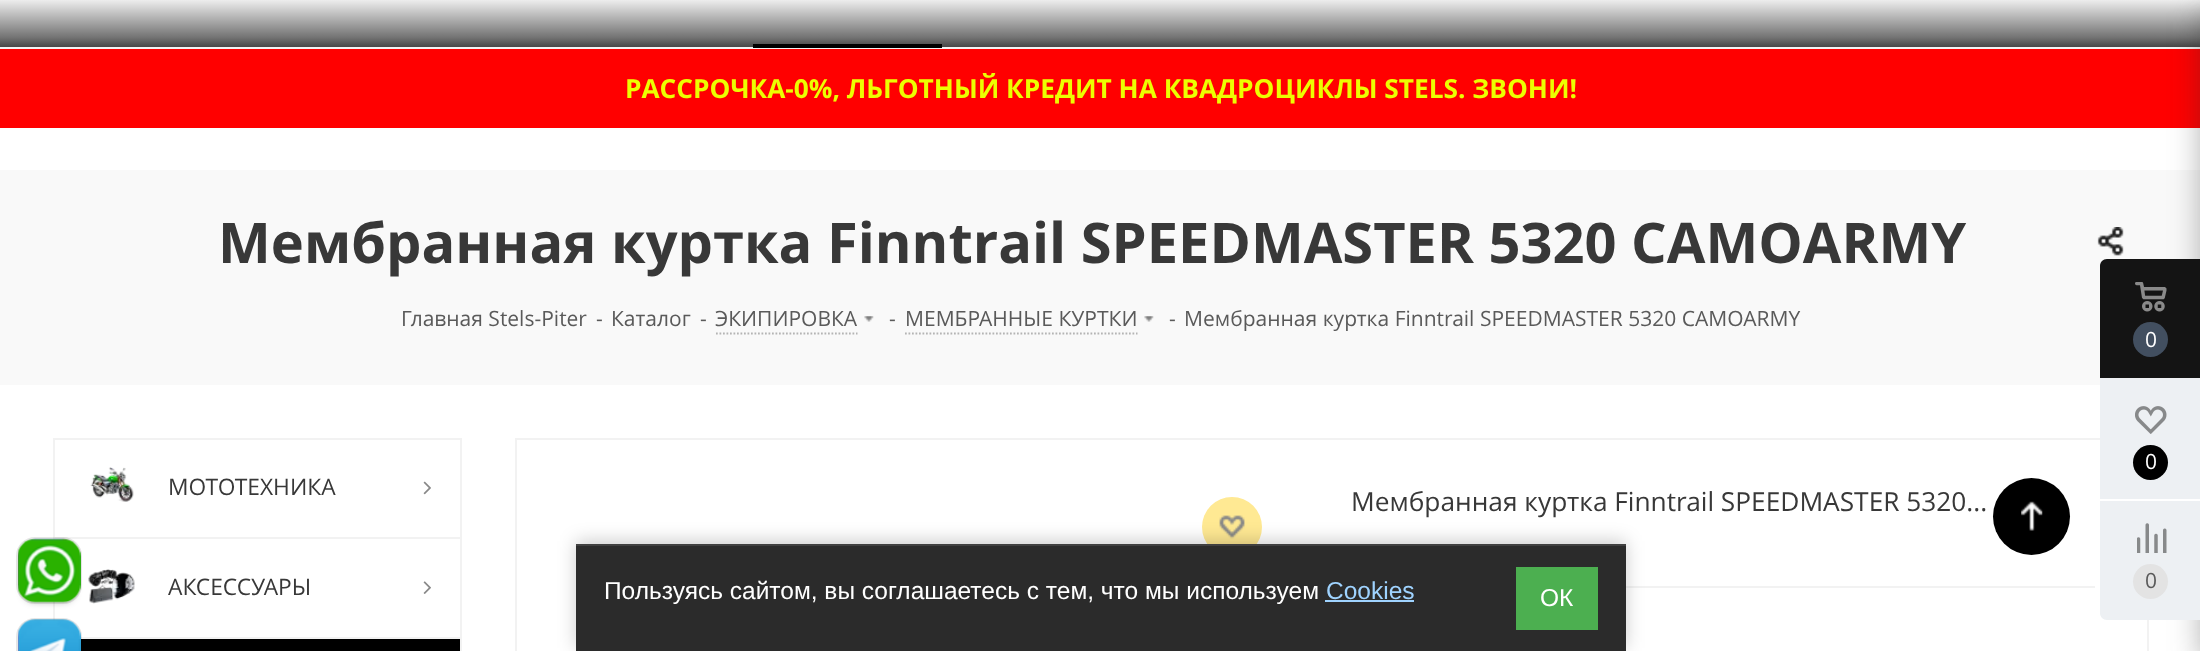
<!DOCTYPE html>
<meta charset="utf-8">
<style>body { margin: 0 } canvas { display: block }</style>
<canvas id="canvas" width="2200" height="651"></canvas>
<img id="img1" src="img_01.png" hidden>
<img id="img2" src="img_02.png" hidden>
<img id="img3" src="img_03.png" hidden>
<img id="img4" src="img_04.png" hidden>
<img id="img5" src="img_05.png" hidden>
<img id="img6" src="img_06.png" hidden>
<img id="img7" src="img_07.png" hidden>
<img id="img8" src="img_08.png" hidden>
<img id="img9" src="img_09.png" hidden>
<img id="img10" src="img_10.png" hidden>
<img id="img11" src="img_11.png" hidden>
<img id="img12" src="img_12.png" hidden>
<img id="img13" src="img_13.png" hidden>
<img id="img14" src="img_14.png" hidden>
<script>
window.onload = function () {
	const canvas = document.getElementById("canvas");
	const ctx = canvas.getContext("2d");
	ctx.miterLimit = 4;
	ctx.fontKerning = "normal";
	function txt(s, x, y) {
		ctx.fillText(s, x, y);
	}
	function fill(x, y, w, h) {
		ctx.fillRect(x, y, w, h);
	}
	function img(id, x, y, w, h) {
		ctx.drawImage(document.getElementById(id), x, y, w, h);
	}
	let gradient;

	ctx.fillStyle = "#FFFFFF";
	fill(0, 0, 2200, 651);
	gradient = ctx.createLinearGradient(1101, -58, 1101, 47);
	gradient.addColorStop(0, "#D1D1D1");
	gradient.addColorStop(0.5, "#FFFFFF");
	gradient.addColorStop(0.91, "#737373");
	gradient.addColorStop(1, "#474747");
	ctx.fillStyle = gradient;
	fill(0, 0, 2200, 47);
	ctx.fillStyle = "#F2F2F2";
	fill(0, 47, 2200, 2);
	ctx.fillStyle = "#000000";
	fill(753, 44, 189, 4);
	ctx.fillStyle = "#FF0000";
	fill(0, 49, 2200, 79);
	ctx.fillStyle = "#F9F9F9";
	fill(0, 170, 2200, 215);
	img("img1", 2097, 227, 27, 29);
	ctx.beginPath();
	ctx.moveTo(716, 333.5);
	ctx.lineTo(857.5, 333.5);
	ctx.strokeStyle = "#B4B4B4";
	ctx.lineWidth = 1.8;
	ctx.setLineDash([1.75, 1.75]);
	ctx.stroke();
	img("img2", 864, 316, 10, 6);
	ctx.beginPath();
	ctx.moveTo(905, 333.5);
	ctx.lineTo(1137.5, 333.5);
	ctx.stroke();
	img("img3", 1144, 316, 10, 6);
	ctx.fillStyle = "#F2F2F2";
	fill(53, 438, 409, 2);
	fill(460, 438, 2, 99);
	fill(53, 438, 2, 99);
	img("img4", 90, 467, 44, 35);
	img("img5", 423, 481, 8, 14);
	fill(53, 537, 409, 2);
	fill(460, 537, 2, 100);
	fill(53, 537, 2, 85);
	img("img6", 88, 569, 47, 35);
	img("img7", 423, 581, 8, 13);
	ctx.fillStyle = "#000000";
	fill(78, 639, 382, 12);
	ctx.fillStyle = "#F2F2F2";
	fill(78, 637, 384, 2);
	fill(460, 637, 2, 14);
	ctx.strokeStyle = "#F2F2F2";
	ctx.lineWidth = 2;
	ctx.setLineDash([]);
	ctx.strokeRect(516, 439, 1632, 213);
	ctx.fillStyle = "#FFE993";
	ctx.beginPath();
	ctx.arc(1232, 527, 30, 0, Math.PI * 2);
	ctx.fill();
	img("img8", 1219, 515, 26, 24);
	ctx.fillStyle = "#F2F2F2";
	fill(1626, 586, 469, 2);
	ctx.fillStyle = "#000000";
	ctx.beginPath();
	ctx.arc(2031.5, 516.5, 38.5, 0, Math.PI * 2);
	ctx.fill();
	img("img9", 2021, 501, 22, 30);
	ctx.fillStyle = "rgba(44, 44, 44, 0.4)";
	ctx.filter = "blur(16px)";
	ctx.beginPath();
	ctx.roundRect(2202, 11, 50, 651, 4);
	ctx.fill();
	ctx.filter = "none";
	ctx.fillStyle = "#EDF0F3";
	ctx.beginPath();
	ctx.moveTo(2107, 259);
	ctx.lineTo(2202, 259);
	ctx.lineTo(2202, 620);
	ctx.lineTo(2107, 620);
	ctx.bezierCurveTo(2103, 620, 2100, 617, 2100, 613);
	ctx.lineTo(2100, 266);
	ctx.bezierCurveTo(2100, 262, 2103, 259, 2107, 259);
	ctx.closePath();
	ctx.fill();
	ctx.fillStyle = "#141414";
	ctx.beginPath();
	ctx.moveTo(2107, 259);
	ctx.lineTo(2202, 259);
	ctx.lineTo(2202, 378);
	ctx.lineTo(2100, 378);
	ctx.lineTo(2100, 266);
	ctx.bezierCurveTo(2100, 262, 2103, 259, 2107, 259);
	ctx.closePath();
	ctx.fill();
	img("img10", 2135, 282, 32, 30);
	ctx.fillStyle = "#424F60";
	ctx.beginPath();
	ctx.arc(2150.5, 339.5, 17.5, 0, Math.PI * 2);
	ctx.fill();
	img("img11", 2135, 406, 32, 28);
	ctx.fillStyle = "#000000";
	ctx.beginPath();
	ctx.arc(2150.5, 462.5, 17.5, 0, Math.PI * 2);
	ctx.fill();
	ctx.fillStyle = "#FFFFFF";
	fill(2100, 499, 100, 2);
	img("img12", 2137, 523, 30, 30);
	ctx.fillStyle = "#E3E3E3";
	ctx.beginPath();
	ctx.arc(2150.5, 581.5, 17.5, 0, Math.PI * 2);
	ctx.fill();
	ctx.fillStyle = "rgba(0, 0, 0, 0.3)";
	ctx.filter = "blur(3.5px)";
	ctx.beginPath();
	ctx.roundRect(23, 550, 52, 52, 12);
	ctx.fill();
	ctx.filter = "none";
	ctx.beginPath();
	ctx.roundRect(17, 538, 64, 65, 18);
	ctx.strokeStyle = "rgba(0, 0, 0, 0.1)";
	ctx.stroke();
	img("img13", 18, 538, 63, 65);
	ctx.beginPath();
	ctx.roundRect(17, 619, 64, 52, 18);
	ctx.stroke();
	img("img14", 18, 619, 63, 32);
	ctx.fillStyle = "rgba(0, 0, 0, 0.2)";
	ctx.filter = "blur(9px)";
	ctx.beginPath();
	ctx.rect(576, 541, 1050, 107);
	ctx.fill();
	ctx.filter = "none";
	ctx.fillStyle = "#2B2B2B";
	fill(576, 546, 1050, 105);
	ctx.fillStyle = "#404040";
	fill(576, 544, 1050, 2);
	ctx.fillStyle = "#9FD3FF";
	fill(1325, 600, 89, 2);
	ctx.fillStyle = "#4CAF50";
	fill(1516, 567, 82, 63);
	ctx.font = "bold 26.25px Open Sans";
	ctx.fillStyle = "#ECFE01";
	txt("РАССРОЧКА-0%, ЛЬГОТНЫЙ КРЕДИТ НА КВАДРОЦИКЛЫ STELS. ЗВОНИ!", 625, 98);
	ctx.font = "bold 56px Open Sans";
	ctx.fillStyle = "#383838";
	txt("Мембранная куртка Finntrail SPEEDMASTER 5320 CAMOARMY", 218, 263);
	ctx.font = "21px Open Sans";
	ctx.fillStyle = "#5A5A5A";
	txt("Главная Stels-Piter", 401, 326);
	txt("-", 596, 326);
	txt("Каталог", 611, 326);
	txt("-", 700, 326);
	txt("ЭКИПИРОВКА", 715, 326);
	txt("-", 889, 326);
	txt("МЕМБРАННЫЕ КУРТКИ", 905, 326);
	txt("-", 1169, 326);
	txt("Мембранная куртка Finntrail SPEEDMASTER 5320 CAMOARMY", 1184, 326);
	ctx.font = "22.75px Open Sans";
	ctx.fillStyle = "#383838";
	txt("МОТОТЕХНИКА", 168, 495);
	txt("АКСЕССУАРЫ", 168, 595);
	ctx.font = "26.25px Open Sans";
	txt("Мембранная куртка Finntrail SPEEDMASTER 5320...", 1351, 511);
	ctx.font = "21px Open Sans";
	ctx.fillStyle = "#FFFFFF";
	txt("0", 2145, 347);
	txt("0", 2145, 469);
	ctx.fillStyle = "#5A5A5A";
	txt("0", 2145, 588);
	ctx.font = "24.5px Liberation Sans";
	ctx.fillStyle = "#FFFFFF";
	txt("Пользуясь сайтом, вы соглашаетесь с тем, что мы используем", 604, 599);
	ctx.fillStyle = "#9FD3FF";
	txt("Cookies", 1326, 599);
	ctx.fillStyle = "#FFFFFF";
	txt("ОК", 1540, 606);
};
</script>
